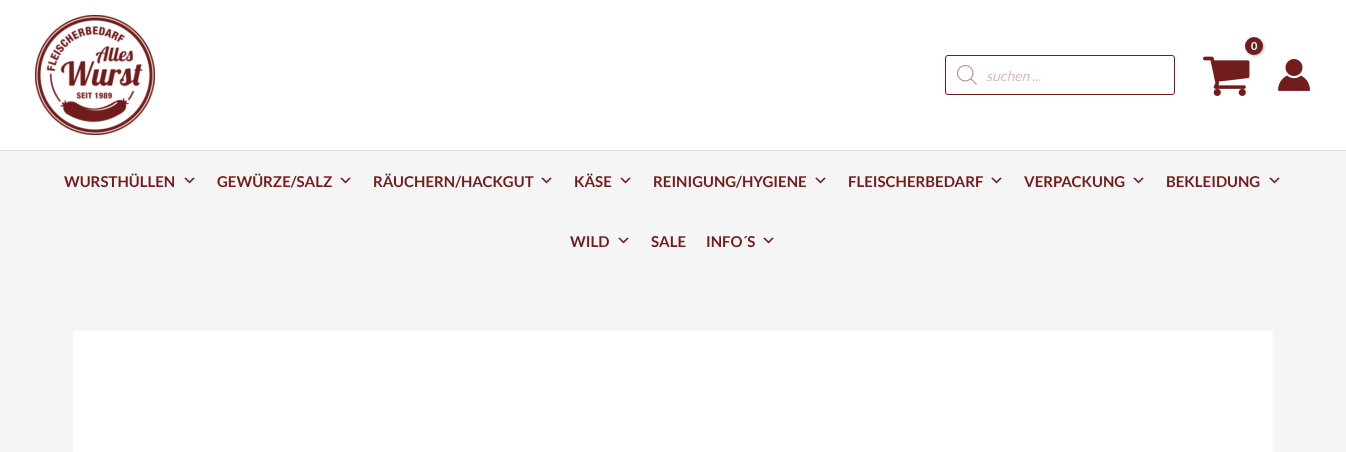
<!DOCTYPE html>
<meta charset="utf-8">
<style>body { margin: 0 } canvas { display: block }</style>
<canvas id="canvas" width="1346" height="452"></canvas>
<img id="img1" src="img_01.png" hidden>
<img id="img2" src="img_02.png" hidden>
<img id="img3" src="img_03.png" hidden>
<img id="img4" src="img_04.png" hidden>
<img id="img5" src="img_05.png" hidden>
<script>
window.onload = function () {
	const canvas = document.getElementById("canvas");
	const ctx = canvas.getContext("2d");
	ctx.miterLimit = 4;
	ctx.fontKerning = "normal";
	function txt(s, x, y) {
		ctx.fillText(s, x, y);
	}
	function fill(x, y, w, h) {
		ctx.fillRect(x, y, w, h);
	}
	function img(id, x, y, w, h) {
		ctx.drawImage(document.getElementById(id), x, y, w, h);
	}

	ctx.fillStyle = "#F5F5F5";
	fill(0, 0, 1346, 452);
	ctx.fillStyle = "#FFFFFF";
	fill(0, 0, 1346, 150);
	ctx.fillStyle = "#DDDDDD";
	fill(0, 150, 1346, 1);
	img("img1", 35, 15, 120, 120);
	img("img2", 1203, 56, 47, 40);
	ctx.fillStyle = "rgba(0, 0, 0, 0.3)";
	ctx.filter = "blur(1.5px)";
	ctx.beginPath();
	ctx.roundRect(1246, 38, 18, 18, 9);
	ctx.fill();
	ctx.filter = "none";
	ctx.fillStyle = "#721D1D";
	ctx.beginPath();
	ctx.arc(1254, 46, 9, 0, Math.PI * 2);
	ctx.fill();
	ctx.beginPath();
	ctx.roundRect(945.5, 55.5, 229, 39, 2.5);
	ctx.strokeStyle = "#721D1D";
	ctx.stroke();
	img("img3", 957, 65, 20, 20);
	img("img4", 1278, 59, 32, 32);
	img("img5", 184, 177, 11, 7);
	img("img5", 340, 177, 11, 7);
	img("img5", 541, 177, 11, 7);
	img("img5", 620, 177, 11, 7);
	img("img5", 815, 177, 11, 7);
	img("img5", 991, 177, 11, 7);
	img("img5", 1133, 177, 11, 7);
	img("img5", 1269, 177, 11, 7);
	img("img5", 618, 237, 11, 7);
	img("img5", 763, 237, 11, 7);
	ctx.fillStyle = "#FFFFFF";
	fill(73, 331, 1200, 121);
	ctx.font = "bold 11px Lato";
	ctx.fillStyle = "#FBFCFF";
	txt("0", 1251, 50);
	ctx.font = "italic 14px Lato";
	ctx.fillStyle = "#D5BBBB";
	txt("suchen ...", 986, 81);
	ctx.font = "bold 15px Lato";
	ctx.fillStyle = "#721D1D";
	txt("WURSTHÜLLEN", 64, 187);
	txt("GEWÜRZE/SALZ", 217, 187);
	txt("RÄUCHERN/HACKGUT", 373, 187);
	txt("KÄSE", 574, 187);
	txt("REINIGUNG/HYGIENE", 653, 187);
	txt("FLEISCHERBEDARF", 848, 187);
	txt("VERPACKUNG", 1024, 187);
	txt("BEKLEIDUNG", 1166, 187);
	txt("WILD", 570, 247);
	txt("SALE", 651, 247);
	txt("INFO´S", 706, 247);
};
</script>
